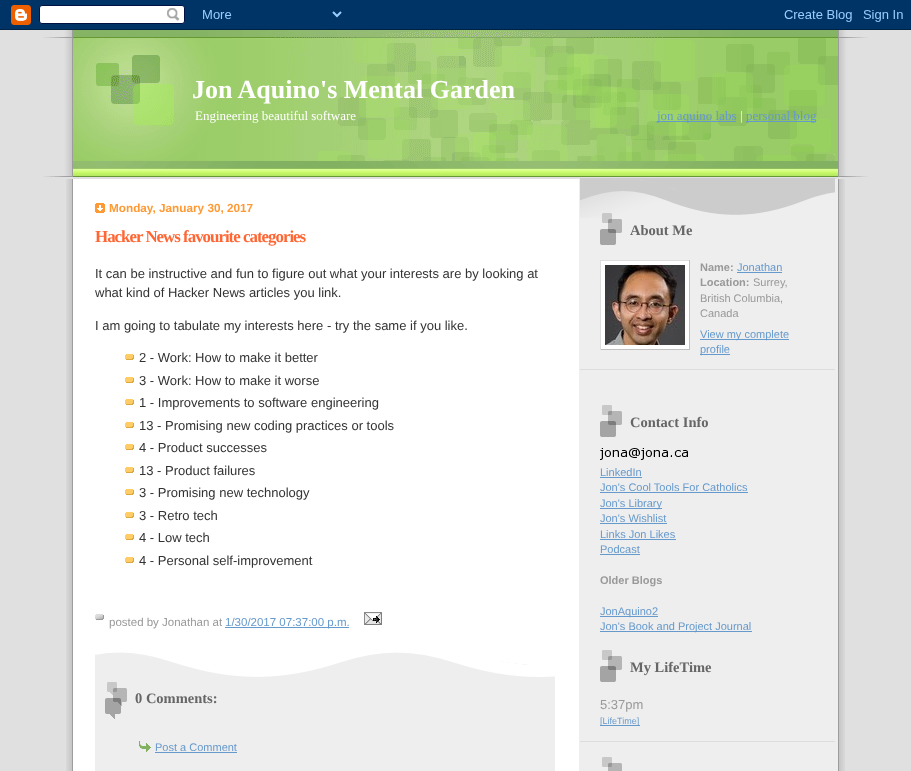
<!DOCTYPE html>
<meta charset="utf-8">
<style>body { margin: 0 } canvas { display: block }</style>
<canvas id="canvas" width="911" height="771"></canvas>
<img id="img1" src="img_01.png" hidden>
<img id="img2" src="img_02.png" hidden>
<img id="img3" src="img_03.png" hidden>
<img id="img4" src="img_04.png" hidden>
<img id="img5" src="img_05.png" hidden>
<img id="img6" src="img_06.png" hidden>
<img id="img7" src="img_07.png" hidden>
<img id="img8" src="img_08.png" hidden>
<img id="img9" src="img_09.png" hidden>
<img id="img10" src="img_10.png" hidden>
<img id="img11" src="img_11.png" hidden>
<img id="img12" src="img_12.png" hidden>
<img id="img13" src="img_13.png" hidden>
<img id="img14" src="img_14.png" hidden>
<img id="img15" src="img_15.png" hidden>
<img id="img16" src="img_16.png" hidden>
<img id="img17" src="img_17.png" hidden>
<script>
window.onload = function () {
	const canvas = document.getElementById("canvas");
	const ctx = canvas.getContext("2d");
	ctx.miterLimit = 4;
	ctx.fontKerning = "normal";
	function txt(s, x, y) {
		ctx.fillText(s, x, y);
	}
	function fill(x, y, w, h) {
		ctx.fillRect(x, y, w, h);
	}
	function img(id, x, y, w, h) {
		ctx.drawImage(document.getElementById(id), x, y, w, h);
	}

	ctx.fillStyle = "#E0E0E0";
	fill(0, 0, 911, 771);
	img("img1", 0, 0, 911, 30);
	img("img2", 66, 179, 779, 592);
	img("img3", 43, 30, 825, 146);
	img("img4", 43, 161, 825, 16);
	ctx.fillStyle = "#6699CC";
	fill(657, 121, 79, 1);
	fill(746, 121, 70, 1);
	img("img5", 95, 203, 10, 10);
	img("img6", 125, 354, 9, 6);
	img("img6", 125, 377, 9, 6);
	img("img6", 125, 399, 9, 6);
	img("img6", 125, 422, 9, 6);
	img("img6", 125, 444, 9, 6);
	img("img6", 125, 467, 9, 6);
	img("img6", 125, 489, 9, 6);
	img("img6", 125, 512, 9, 6);
	img("img6", 125, 534, 9, 6);
	img("img6", 125, 557, 9, 6);
	img("img7", 95, 614, 9, 6);
	fill(225, 627, 124, 1);
	img("img8", 364, 612, 18, 13);
	ctx.fillStyle = "#EEEEEE";
	fill(95, 653, 460, 118);
	img("img9", 95, 652, 460, 25);
	img("img10", 105, 682, 22, 37);
	img("img11", 139, 741, 12, 11);
	ctx.fillStyle = "#6699CC";
	fill(155, 752, 82, 1);
	img("img12", 580, 178, 255, 40);
	img("img13", 600, 213, 22, 32);
	ctx.fillStyle = "#FFFFFF";
	fill(601, 261, 88, 88);
	ctx.fillStyle = "#DDDDDD";
	fill(600, 260, 90, 1);
	ctx.fillStyle = "#C0C0C0";
	fill(689, 260, 1, 90);
	fill(600, 349, 90, 1);
	ctx.fillStyle = "#DDDDDD";
	fill(600, 260, 1, 90);
	img("img14", 605, 265, 80, 80);
	ctx.fillStyle = "#6699CC";
	fill(737, 272, 45, 1);
	ctx.fillStyle = "#DDDDDD";
	fill(580, 369, 255, 1);
	ctx.fillStyle = "#6699CC";
	fill(700, 339, 89, 1);
	fill(700, 354, 30, 1);
	img("img15", 600, 405, 22, 32);
	img("img16", 600, 448, 88, 12);
	fill(600, 477, 42, 1);
	fill(600, 492, 148, 1);
	fill(600, 508, 62, 1);
	fill(600, 523, 67, 1);
	fill(600, 539, 76, 1);
	fill(600, 554, 40, 1);
	fill(600, 616, 58, 1);
	fill(600, 631, 152, 1);
	img("img15", 600, 650, 22, 32);
	ctx.fillStyle = "#DDDDDD";
	fill(580, 741, 255, 1);
	ctx.fillStyle = "#6699CC";
	fill(600, 725, 40, 1);
	img("img17", 602, 757, 20, 14);
	ctx.font = "bold 26px Liberation Serif";
	ctx.fillStyle = "#FFFFFF";
	txt("Jon Aquino's Mental Garden", 192, 98);
	ctx.font = "13px Liberation Serif";
	txt("Engineering beautiful software", 195, 120);
	ctx.fillStyle = "#6699CC";
	txt("jon aquino labs", 657, 120);
	ctx.fillStyle = "#FFFFFF";
	txt("|", 740, 120);
	ctx.fillStyle = "#6699CC";
	txt("personal blog", 746, 120);
	ctx.font = "bold 11.75px Liberation Sans";
	ctx.fillStyle = "#FF9933";
	txt("Monday, January 30, 2017", 109, 212);
	ctx.letterSpacing = "-1px";
	ctx.font = "bold 16.9px Liberation Serif";
	ctx.fillStyle = "#FF6633";
	txt("Hacker News favourite categories", 95, 242);
	ctx.letterSpacing = "0px";
	ctx.font = "13px Liberation Sans";
	ctx.fillStyle = "#333333";
	txt("It can be instructive and fun to figure out what your interests are by looking at", 95, 278);
	txt("what kind of Hacker News articles you link.", 95, 297);
	txt("I am going to tabulate my interests here - try the same if you like.", 95, 330);
	txt("2 - Work: How to make it better", 139, 362);
	txt("3 - Work: How to make it worse", 139, 385);
	txt("1 - Improvements to software engineering", 139, 407);
	txt("13 - Promising new coding practices or tools", 139, 430);
	txt("4 - Product successes", 139, 452);
	txt("13 - Product failures", 139, 475);
	txt("3 - Promising new technology", 139, 497);
	txt("3 - Retro tech", 139, 520);
	txt("4 - Low tech", 139, 542);
	txt("4 - Personal self-improvement", 139, 565);
	ctx.font = "11.5px Liberation Sans";
	ctx.fillStyle = "#999999";
	txt("posted by Jonathan at", 109, 626);
	ctx.fillStyle = "#6699CC";
	txt("1/30/2017 07:37:00 p.m.", 225, 626);
	ctx.font = "bold 14.5px Liberation Serif";
	ctx.fillStyle = "#666666";
	txt("0 Comments:", 135, 703);
	ctx.font = "11px Liberation Sans";
	ctx.fillStyle = "#6699CC";
	txt("Post a Comment", 155, 751);
	ctx.font = "bold 14.5px Liberation Serif";
	ctx.fillStyle = "#666666";
	txt("About Me", 630, 235);
	ctx.font = "bold 11px Liberation Sans";
	ctx.fillStyle = "#999999";
	txt("Name:", 700, 271);
	ctx.font = "11px Liberation Sans";
	ctx.fillStyle = "#6699CC";
	txt("Jonathan", 737, 271);
	ctx.font = "bold 11px Liberation Sans";
	ctx.fillStyle = "#999999";
	txt("Location:", 700, 286);
	ctx.font = "11px Liberation Sans";
	txt("Surrey,", 753, 286);
	txt("British Columbia,", 700, 302);
	txt("Canada", 700, 317);
	ctx.fillStyle = "#6699CC";
	txt("View my complete", 700, 338);
	txt("profile", 700, 353);
	ctx.font = "bold 14.5px Liberation Serif";
	ctx.fillStyle = "#666666";
	txt("Contact Info", 630, 427);
	ctx.font = "11px Liberation Sans";
	ctx.fillStyle = "#6699CC";
	txt("LinkedIn", 600, 476);
	txt("Jon's Cool Tools For Catholics", 600, 491);
	txt("Jon's Library", 600, 507);
	txt("Jon's Wishlist", 600, 522);
	txt("Links Jon Likes", 600, 538);
	txt("Podcast", 600, 553);
	ctx.font = "bold 11px Liberation Sans";
	ctx.fillStyle = "#999999";
	txt("Older Blogs", 600, 584);
	ctx.font = "11px Liberation Sans";
	ctx.fillStyle = "#6699CC";
	txt("JonAquino2", 600, 615);
	txt("Jon's Book and Project Journal", 600, 630);
	ctx.font = "bold 14.5px Liberation Serif";
	ctx.fillStyle = "#666666";
	txt("My LifeTime", 630, 672);
	ctx.font = "13px Liberation Sans";
	ctx.fillStyle = "#999999";
	txt("5:37pm", 600, 709);
	ctx.font = "9px Liberation Sans";
	ctx.fillStyle = "#6699CC";
	txt("[LifeTime]", 600, 724);
};
</script>
